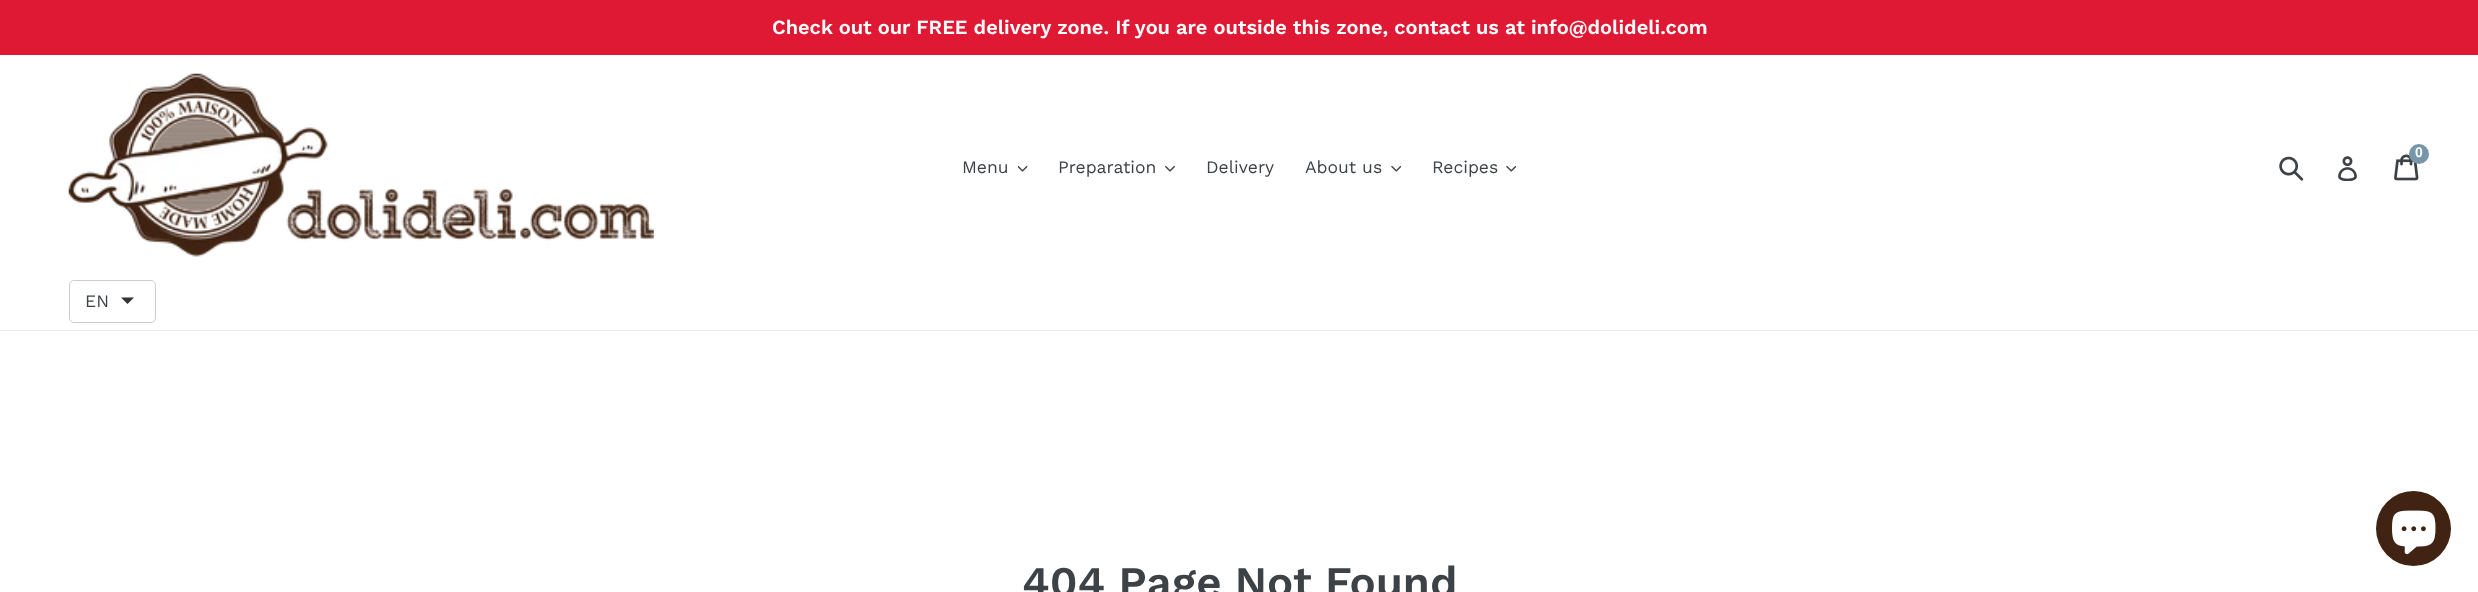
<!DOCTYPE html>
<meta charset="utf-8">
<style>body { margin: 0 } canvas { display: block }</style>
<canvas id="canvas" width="2478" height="592"></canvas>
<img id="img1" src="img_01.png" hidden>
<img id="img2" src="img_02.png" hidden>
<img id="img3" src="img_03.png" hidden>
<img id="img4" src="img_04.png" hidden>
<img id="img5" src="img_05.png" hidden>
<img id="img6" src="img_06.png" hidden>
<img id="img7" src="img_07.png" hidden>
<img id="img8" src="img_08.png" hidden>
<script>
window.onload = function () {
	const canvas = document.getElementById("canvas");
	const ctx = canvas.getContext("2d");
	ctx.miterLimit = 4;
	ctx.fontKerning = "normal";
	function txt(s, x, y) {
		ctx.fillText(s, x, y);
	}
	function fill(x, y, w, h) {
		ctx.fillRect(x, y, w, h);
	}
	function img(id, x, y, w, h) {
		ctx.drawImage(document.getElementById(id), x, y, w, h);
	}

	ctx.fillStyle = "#FFFFFF";
	fill(0, 0, 2478, 592);
	ctx.fillStyle = "#DF1934";
	fill(0, 0, 2478, 55);
	ctx.fillStyle = "#E8E9EB";
	fill(0, 330, 2478, 1);
	img("img1", 68, 73, 586, 184);
	img("img2", 2394, 154, 25, 27);
	ctx.fillStyle = "#7796A8";
	ctx.beginPath();
	ctx.arc(2419, 154, 10, 0, Math.PI * 2);
	ctx.fill();
	img("img3", 2279, 156, 25, 25);
	img("img4", 2338, 156, 19, 25);
	img("img5", 1018, 165, 10, 7);
	img("img6", 1165, 165, 10, 7);
	img("img7", 1391, 165, 10, 7);
	img("img7", 1506, 165, 10, 7);
	ctx.beginPath();
	ctx.roundRect(69.5, 280.5, 86, 42, 4.5);
	ctx.strokeStyle = "#CCCCCC";
	ctx.stroke();
	ctx.fillStyle = "#333333";
	ctx.beginPath();
	ctx.moveTo(121, 297.5);
	ctx.lineTo(134, 297.5);
	ctx.lineTo(127.5, 304);
	ctx.closePath();
	ctx.fill();
	ctx.fillStyle = "#402312";
	ctx.beginPath();
	ctx.arc(2413.5, 528.5, 37.5, 0, Math.PI * 2);
	ctx.fill();
	img("img8", 2392, 510, 44, 45);
	ctx.font = "600 20px Work Sans";
	ctx.fillStyle = "#FFFFFF";
	txt("Check out our FREE delivery zone. If you are outside this zone, contact us at info@dolideli.com", 772, 34);
	ctx.font = "bold 14px Liberation Sans";
	txt("0", 2415, 157);
	ctx.font = "17.5px Work Sans";
	ctx.fillStyle = "#3D4246";
	txt("Menu", 962, 173);
	txt("Preparation", 1058, 173);
	txt("Delivery", 1206, 173);
	txt("About us", 1305, 173);
	txt("Recipes", 1432, 173);
	txt("EN", 85, 307);
	ctx.font = "600 43.75px Work Sans";
	txt("404 Page Not Found", 1022, 597);
};
</script>
